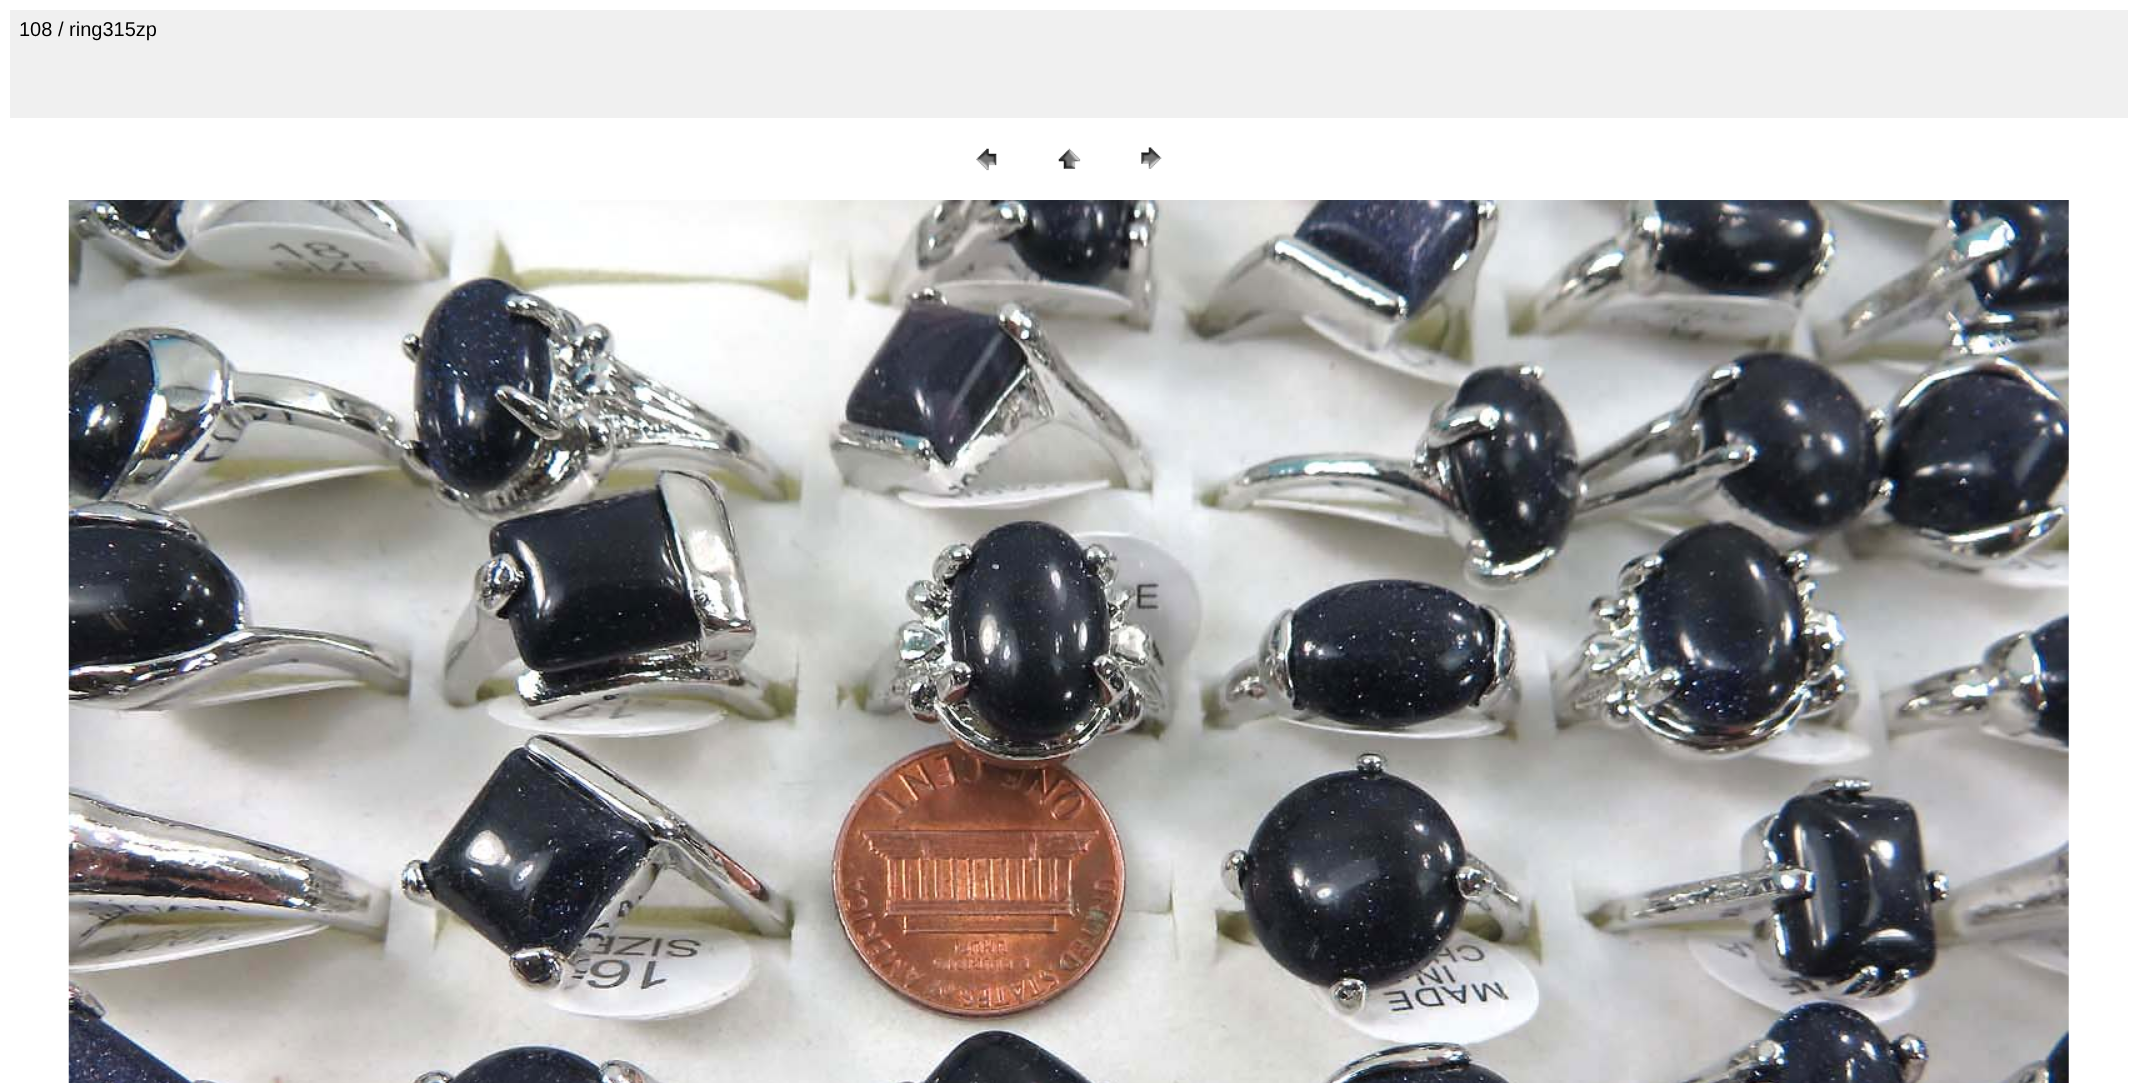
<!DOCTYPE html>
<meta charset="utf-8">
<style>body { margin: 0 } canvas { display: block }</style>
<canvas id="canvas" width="2137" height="1083"></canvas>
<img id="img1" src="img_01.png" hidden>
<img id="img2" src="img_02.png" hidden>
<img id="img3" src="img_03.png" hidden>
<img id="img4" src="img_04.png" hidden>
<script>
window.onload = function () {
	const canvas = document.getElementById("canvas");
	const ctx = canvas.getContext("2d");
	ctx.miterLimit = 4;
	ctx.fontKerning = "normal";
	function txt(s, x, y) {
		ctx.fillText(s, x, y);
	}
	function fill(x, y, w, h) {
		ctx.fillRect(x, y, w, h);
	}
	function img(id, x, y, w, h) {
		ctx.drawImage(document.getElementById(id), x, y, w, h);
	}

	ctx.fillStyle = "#FFFFFF";
	fill(0, 0, 2137, 1083);
	ctx.fillStyle = "#F0F0F0";
	fill(10, 10, 2118, 108);
	img("img1", 976, 148, 21, 23);
	img("img2", 1058, 148, 23, 21);
	img("img3", 1141, 147, 21, 22);
	img("img4", 68, 200, 2001, 883);
	ctx.font = "20px Liberation Sans";
	ctx.fillStyle = "#000000";
	txt("108 / ring315zp", 19, 36);
};
</script>
